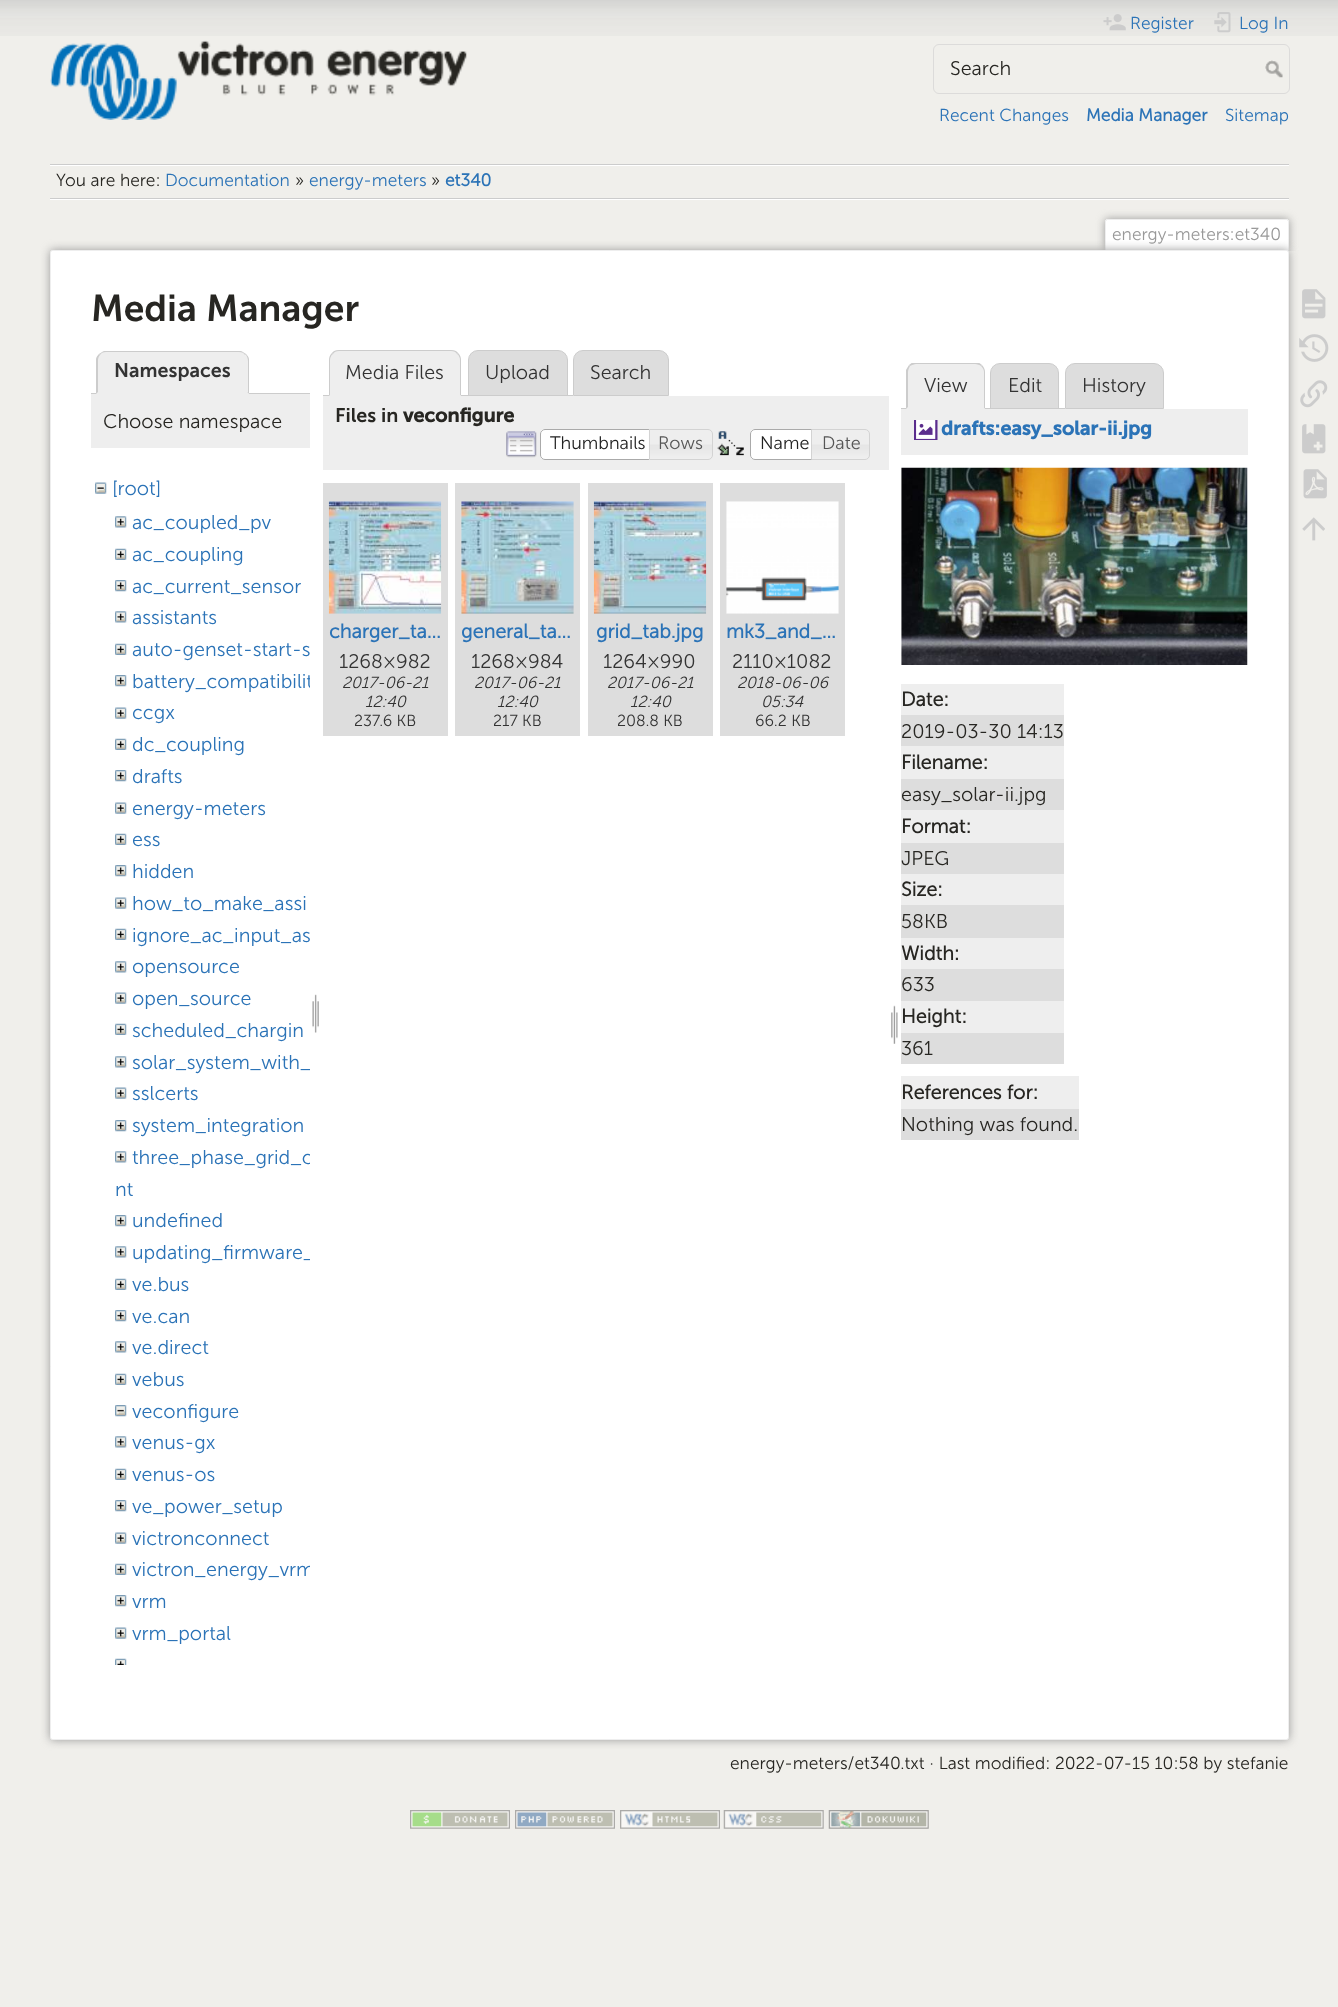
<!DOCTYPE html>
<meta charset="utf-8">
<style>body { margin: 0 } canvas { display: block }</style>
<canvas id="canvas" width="1338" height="2007"></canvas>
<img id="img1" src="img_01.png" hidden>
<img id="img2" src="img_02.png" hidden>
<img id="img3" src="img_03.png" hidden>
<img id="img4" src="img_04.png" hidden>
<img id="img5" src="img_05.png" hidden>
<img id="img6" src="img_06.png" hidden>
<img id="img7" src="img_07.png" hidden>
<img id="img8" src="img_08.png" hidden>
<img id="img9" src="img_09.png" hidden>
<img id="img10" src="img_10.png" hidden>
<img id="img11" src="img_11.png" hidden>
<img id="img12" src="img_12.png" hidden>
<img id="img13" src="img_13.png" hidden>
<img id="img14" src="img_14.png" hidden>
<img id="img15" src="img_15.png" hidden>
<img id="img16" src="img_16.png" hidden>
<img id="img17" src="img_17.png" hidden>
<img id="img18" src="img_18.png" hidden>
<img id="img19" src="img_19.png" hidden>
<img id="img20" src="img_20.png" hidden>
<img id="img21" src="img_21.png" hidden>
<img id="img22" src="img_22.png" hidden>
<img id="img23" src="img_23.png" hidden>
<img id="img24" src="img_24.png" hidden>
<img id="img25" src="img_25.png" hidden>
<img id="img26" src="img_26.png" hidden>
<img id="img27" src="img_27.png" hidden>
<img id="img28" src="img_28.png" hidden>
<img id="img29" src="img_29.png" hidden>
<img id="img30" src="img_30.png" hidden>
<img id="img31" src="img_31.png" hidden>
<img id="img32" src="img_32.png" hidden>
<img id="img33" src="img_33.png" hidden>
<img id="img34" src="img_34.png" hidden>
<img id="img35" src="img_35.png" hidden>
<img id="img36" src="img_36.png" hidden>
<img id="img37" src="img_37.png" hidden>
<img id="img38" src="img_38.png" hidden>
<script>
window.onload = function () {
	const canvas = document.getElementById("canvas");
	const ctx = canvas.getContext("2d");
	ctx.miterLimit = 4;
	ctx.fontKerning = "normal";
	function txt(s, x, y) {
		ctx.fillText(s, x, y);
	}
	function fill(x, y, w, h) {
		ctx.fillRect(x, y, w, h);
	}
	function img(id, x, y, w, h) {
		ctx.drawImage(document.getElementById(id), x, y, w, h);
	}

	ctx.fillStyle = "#F0EFEB";
	fill(0, 0, 1338, 2007);
	img("img1", 0, 0, 1338, 36);
	img("img2", 50, 40, 417, 80);
	img("img3", 1103, 14, 23, 17);
	img("img4", 1214, 12, 17, 21);
	ctx.beginPath();
	ctx.roundRect(933.5, 44.5, 356, 49, 5.5);
	ctx.strokeStyle = "#DCDBDA";
	ctx.stroke();
	img("img5", 1265, 60, 18, 18);
	ctx.fillStyle = "#CCCCCC";
	fill(50, 164, 1239, 1);
	ctx.fillStyle = "#FFFFFF";
	fill(50, 199, 1239, 1);
	fill(50, 165, 1239, 1);
	ctx.fillStyle = "#CCCCCC";
	fill(50, 198, 1239, 1);
	ctx.save();
	ctx.beginPath();
	ctx.rect(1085, 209, 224, 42);
	ctx.clip();
	ctx.fillStyle = "#999999";
	ctx.filter = "blur(4.5px)";
	ctx.beginPath();
	ctx.roundRect(1105, 219, 184, 32, 2.5);
	ctx.fill();
	ctx.filter = "none";
	ctx.restore();
	ctx.fillStyle = "#FFFFFF";
	ctx.beginPath();
	ctx.roundRect(1106, 220, 182, 31, [1, 1, 0, 0]);
	ctx.fill();
	ctx.fillStyle = "#EEEEEE";
	fill(1106, 219, 182, 1);
	fill(1288, 220, 1, 31);
	fill(1105, 220, 1, 31);
	ctx.fillStyle = "#999999";
	ctx.filter = "blur(5px)";
	ctx.beginPath();
	ctx.roundRect(50, 250, 1239, 1490, 2.5);
	ctx.fill();
	ctx.filter = "none";
	ctx.fillStyle = "#FFFFFF";
	ctx.beginPath();
	ctx.roundRect(50.5, 250.5, 1238, 1489, 2);
	ctx.fill();
	ctx.strokeStyle = "#EEEEEE";
	ctx.stroke();
	ctx.fillStyle = "#CCCCCC";
	fill(91, 393, 219, 1);
	ctx.fillStyle = "#EEEEEE";
	ctx.beginPath();
	ctx.roundRect(96, 351, 153, 43, [10, 10, 0, 0]);
	ctx.fill();
	ctx.fillStyle = "#CCCCCC";
	ctx.beginPath();
	ctx.moveTo(106, 352);
	ctx.bezierCurveTo(103, 352, 101, 353, 100, 355);
	ctx.lineTo(99, 354);
	ctx.bezierCurveTo(101, 353, 102, 352, 104, 351);
	ctx.lineTo(241, 351);
	ctx.bezierCurveTo(243, 352, 244, 353, 246, 354);
	ctx.lineTo(245, 355);
	ctx.bezierCurveTo(244, 353, 242, 352, 239, 352);
	ctx.closePath();
	ctx.fill();
	ctx.beginPath();
	ctx.moveTo(246, 354);
	ctx.bezierCurveTo(247.5, 355.5, 248.5, 357, 249, 359);
	ctx.lineTo(249, 394);
	ctx.lineTo(247, 392);
	ctx.lineTo(248, 392);
	ctx.lineTo(248, 361);
	ctx.bezierCurveTo(248, 358.5, 247, 356, 245.5, 354.5);
	ctx.closePath();
	ctx.fill();
	ctx.fillStyle = "#EEEEEE";
	ctx.beginPath();
	ctx.moveTo(249, 394);
	ctx.lineTo(247, 392);
	ctx.lineTo(98, 392);
	ctx.lineTo(96, 394);
	ctx.closePath();
	ctx.fill();
	ctx.fillStyle = "#CCCCCC";
	ctx.beginPath();
	ctx.moveTo(96, 394);
	ctx.lineTo(96, 359);
	ctx.bezierCurveTo(96.5, 357, 97.5, 355.5, 99, 354);
	ctx.lineTo(100, 355);
	ctx.bezierCurveTo(98.5, 356.5, 98, 358.5, 98, 361);
	ctx.lineTo(98, 392);
	ctx.closePath();
	ctx.fill();
	ctx.fillStyle = "#EEEEEE";
	fill(91, 394, 219, 54);
	img("img6", 95, 482, 12, 12);
	img("img7", 115, 516, 12, 12);
	img("img8", 115, 548, 12, 12);
	img("img9", 115, 580, 12, 12);
	img("img7", 115, 611, 12, 12);
	img("img8", 115, 643, 12, 12);
	img("img9", 115, 675, 12, 12);
	img("img10", 115, 707, 12, 12);
	img("img8", 115, 738, 12, 12);
	img("img9", 115, 770, 12, 12);
	img("img10", 115, 802, 12, 12);
	img("img8", 115, 833, 12, 12);
	img("img9", 115, 865, 12, 12);
	img("img10", 115, 897, 12, 12);
	img("img8", 115, 928, 12, 12);
	img("img7", 115, 961, 12, 12);
	img("img10", 115, 992, 12, 12);
	img("img11", 115, 1023, 12, 12);
	img("img7", 115, 1056, 12, 12);
	img("img10", 115, 1087, 12, 12);
	img("img9", 115, 1120, 12, 12);
	img("img7", 115, 1151, 12, 12);
	img("img9", 115, 1215, 12, 12);
	img("img7", 115, 1246, 12, 12);
	img("img8", 115, 1278, 12, 12);
	img("img9", 115, 1310, 12, 12);
	img("img7", 115, 1341, 12, 12);
	img("img8", 115, 1373, 12, 12);
	img("img12", 115, 1405, 12, 12);
	img("img7", 115, 1436, 12, 12);
	img("img8", 115, 1468, 12, 12);
	img("img9", 115, 1500, 12, 12);
	img("img10", 115, 1532, 12, 12);
	img("img11", 115, 1563, 12, 12);
	img("img9", 115, 1595, 12, 12);
	img("img10", 115, 1627, 12, 12);
	img("img13", 115, 1658, 12, 7);
	img("img14", 312, 994, 7, 39);
	ctx.fillStyle = "#DDDDDD";
	ctx.beginPath();
	ctx.roundRect(468.5, 350.5, 99, 45, [9.5, 9.5, 0, 0]);
	ctx.fill();
	ctx.strokeStyle = "#CCCCCC";
	ctx.stroke();
	ctx.fillStyle = "#CCCCCC";
	fill(323, 395, 250, 1);
	ctx.fillStyle = "#EEEEEE";
	ctx.beginPath();
	ctx.roundRect(329, 350, 132, 46, [10, 10, 0, 0]);
	ctx.fill();
	ctx.fillStyle = "#CCCCCC";
	ctx.beginPath();
	ctx.moveTo(339, 350);
	ctx.bezierCurveTo(336, 350, 333, 351, 332, 353);
	ctx.lineTo(333, 354);
	ctx.bezierCurveTo(334, 352, 336, 351, 339, 351);
	ctx.lineTo(451, 351);
	ctx.bezierCurveTo(454, 351, 456, 352, 457, 354);
	ctx.lineTo(458, 353);
	ctx.bezierCurveTo(457, 351, 454, 350, 451, 350);
	ctx.closePath();
	ctx.fill();
	ctx.beginPath();
	ctx.moveTo(458, 353);
	ctx.bezierCurveTo(460, 355, 461, 357, 461, 360);
	ctx.lineTo(461, 396);
	ctx.lineTo(460, 395);
	ctx.lineTo(460, 360);
	ctx.bezierCurveTo(460, 358, 459, 355, 457, 354);
	ctx.closePath();
	ctx.fill();
	ctx.fillStyle = "#EEEEEE";
	ctx.beginPath();
	ctx.moveTo(461, 396);
	ctx.lineTo(460, 395);
	ctx.lineTo(330, 395);
	ctx.lineTo(329, 396);
	ctx.closePath();
	ctx.fill();
	ctx.fillStyle = "#CCCCCC";
	ctx.beginPath();
	ctx.moveTo(332, 353);
	ctx.bezierCurveTo(330, 355, 329, 357, 329, 360);
	ctx.lineTo(329, 396);
	ctx.lineTo(330, 395);
	ctx.lineTo(330, 360);
	ctx.bezierCurveTo(330, 358, 331, 355, 333, 354);
	ctx.closePath();
	ctx.fill();
	ctx.fillStyle = "#DDDDDD";
	ctx.beginPath();
	ctx.roundRect(573.5, 350.5, 95, 45, [9.5, 9.5, 0, 0]);
	ctx.fill();
	ctx.stroke();
	ctx.fillStyle = "#EEEEEE";
	fill(323, 396, 566, 74);
	img("img15", 506, 431, 31, 27);
	ctx.fillStyle = "#FFFFFF";
	ctx.beginPath();
	ctx.roundRect(540, 429, 115, 31, [5, 0, 0, 5]);
	ctx.fill();
	img("img16", 540, 429, 4, 30);
	ctx.beginPath();
	ctx.roundRect(540.5, 429.5, 114, 30, [4.5, 0, 0, 4.5]);
	ctx.strokeStyle = "#AAAAAA";
	ctx.stroke();
	img("img17", 648, 429, 64, 31);
	ctx.beginPath();
	ctx.roundRect(649.5, 429.5, 63, 30, [0, 4.5, 4.5, 0]);
	ctx.strokeStyle = "#D3D3D3";
	ctx.stroke();
	img("img18", 717, 431, 27, 25);
	ctx.beginPath();
	ctx.roundRect(750, 429, 69, 31, [5, 0, 0, 5]);
	ctx.fill();
	img("img19", 750, 429, 4, 30);
	ctx.beginPath();
	ctx.roundRect(750.5, 429.5, 68, 30, [4.5, 0, 0, 4.5]);
	ctx.strokeStyle = "#AAAAAA";
	ctx.stroke();
	img("img20", 812, 429, 58, 31);
	ctx.beginPath();
	ctx.roundRect(811.5, 429.5, 58, 30, [0, 4.5, 4.5, 0]);
	ctx.strokeStyle = "#D3D3D3";
	ctx.stroke();
	ctx.fillStyle = "#DDDDDD";
	fill(323, 483, 125, 253);
	img("img21", 328, 501, 114, 113);
	fill(455, 483, 125, 253);
	img("img22", 461, 501, 113, 113);
	fill(588, 483, 125, 253);
	img("img23", 593, 501, 114, 113);
	fill(720, 483, 125, 253);
	img("img24", 726, 501, 113, 113);
	img("img25", 891, 1005, 7, 39);
	ctx.beginPath();
	ctx.roundRect(990.5, 363.5, 68, 45, [9.5, 9.5, 0, 0]);
	ctx.fill();
	ctx.strokeStyle = "#CCCCCC";
	ctx.stroke();
	ctx.fillStyle = "#CCCCCC";
	fill(901, 408, 164, 1);
	ctx.fillStyle = "#EEEEEE";
	ctx.beginPath();
	ctx.roundRect(906, 363, 79, 46, [10, 10, 0, 0]);
	ctx.fill();
	ctx.save();
	ctx.beginPath();
	ctx.rect(901, 363, 263, 46);
	ctx.clip();
	ctx.fillStyle = "#CCCCCC";
	ctx.beginPath();
	ctx.moveTo(916, 364);
	ctx.bezierCurveTo(914, 364, 912, 365, 910, 366);
	ctx.lineTo(909, 365);
	ctx.lineTo(913, 362);
	ctx.lineTo(978, 362);
	ctx.lineTo(982, 365);
	ctx.lineTo(981, 366);
	ctx.bezierCurveTo(980, 365, 977, 364, 975, 364);
	ctx.closePath();
	ctx.fill();
	ctx.restore();
	ctx.fillStyle = "#CCCCCC";
	ctx.beginPath();
	ctx.moveTo(985, 409);
	ctx.lineTo(985, 372);
	ctx.bezierCurveTo(985, 370, 984, 367, 982, 365);
	ctx.lineTo(981, 366);
	ctx.bezierCurveTo(983, 368, 984, 370, 984, 372);
	ctx.lineTo(984, 408);
	ctx.closePath();
	ctx.fill();
	ctx.fillStyle = "#EEEEEE";
	ctx.beginPath();
	ctx.moveTo(985, 409);
	ctx.lineTo(984, 408);
	ctx.lineTo(908, 408);
	ctx.lineTo(908, 407);
	ctx.lineTo(906, 409);
	ctx.closePath();
	ctx.fill();
	ctx.fillStyle = "#CCCCCC";
	ctx.beginPath();
	ctx.moveTo(906, 409);
	ctx.lineTo(906, 370);
	ctx.bezierCurveTo(907, 368, 908, 367, 909, 365);
	ctx.lineTo(910, 366);
	ctx.bezierCurveTo(909, 368, 908, 370, 908, 372);
	ctx.lineTo(908, 407);
	ctx.closePath();
	ctx.fill();
	ctx.fillStyle = "#DDDDDD";
	ctx.beginPath();
	ctx.roundRect(1065.5, 363.5, 98, 45, [9.5, 9.5, 0, 0]);
	ctx.fill();
	ctx.stroke();
	ctx.fillStyle = "#EEEEEE";
	fill(901, 409, 347, 46);
	img("img26", 914, 420, 24, 20);
	img("img27", 901, 467, 347, 198);
	fill(901, 684, 163, 31);
	ctx.fillStyle = "#DDDDDD";
	fill(901, 715, 163, 31);
	ctx.fillStyle = "#EEEEEE";
	fill(901, 746, 163, 33);
	ctx.fillStyle = "#DDDDDD";
	fill(901, 779, 163, 31);
	ctx.fillStyle = "#EEEEEE";
	fill(901, 810, 163, 33);
	ctx.fillStyle = "#DDDDDD";
	fill(901, 843, 163, 31);
	ctx.fillStyle = "#EEEEEE";
	fill(901, 874, 163, 31);
	ctx.fillStyle = "#DDDDDD";
	fill(901, 905, 163, 33);
	ctx.fillStyle = "#EEEEEE";
	fill(901, 938, 163, 31);
	ctx.fillStyle = "#DDDDDD";
	fill(901, 969, 163, 32);
	ctx.fillStyle = "#EEEEEE";
	fill(901, 1001, 163, 32);
	ctx.fillStyle = "#DDDDDD";
	fill(901, 1033, 163, 31);
	ctx.fillStyle = "#EEEEEE";
	fill(901, 1076, 178, 33);
	ctx.fillStyle = "#DDDDDD";
	fill(901, 1109, 178, 31);
	img("img28", 1302, 289, 24, 30);
	img("img29", 1299, 334, 30, 28);
	img("img30", 1300, 380, 28, 28);
	img("img31", 1302, 424, 24, 30);
	img("img32", 1303, 469, 24, 30);
	img("img33", 1302, 517, 23, 24);
	img("img34", 410, 1810, 100, 19);
	img("img35", 515, 1810, 100, 19);
	img("img36", 620, 1810, 100, 19);
	img("img37", 723, 1810, 101, 19);
	img("img38", 828, 1810, 101, 19);
	ctx.font = "17.35px 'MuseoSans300'";
	ctx.fillStyle = "#2B73B7";
	txt("Register", 1130, 29);
	txt("Log In", 1239, 29);
	ctx.font = "19.75px 'MuseoSans300'";
	ctx.fillStyle = "#272622";
	txt("Search", 950, 75);
	ctx.font = "17.35px 'MuseoSans300'";
	ctx.fillStyle = "#2B73B7";
	txt("Recent Changes", 939, 121);
	ctx.font = "bold 17.35px 'MuseoSans300'";
	txt("Media Manager", 1086, 121);
	ctx.font = "17.35px 'MuseoSans300'";
	txt("Sitemap", 1225, 121);
	ctx.fillStyle = "#272622";
	txt("You are here:", 56, 186);
	ctx.fillStyle = "#2B73B7";
	txt("Documentation", 165, 186);
	ctx.fillStyle = "#272622";
	txt("»", 295, 186);
	ctx.fillStyle = "#2B73B7";
	txt("energy-meters", 309, 186);
	ctx.fillStyle = "#272622";
	txt("»", 431, 186);
	ctx.font = "bold 17.35px 'MuseoSans300'";
	ctx.fillStyle = "#2B73B7";
	txt("et340", 445, 186);
	ctx.font = "17.35px 'MuseoSans300'";
	ctx.fillStyle = "#999999";
	txt("energy-meters:et340", 1112, 240);
	ctx.font = "37.25px 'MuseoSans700'";
	ctx.fillStyle = "#272622";
	txt("Media Manager", 91, 321);
	ctx.font = "19.75px 'MuseoSans700'";
	ctx.fillStyle = "#333333";
	txt("Namespaces", 114, 377);
	ctx.font = "19.75px 'MuseoSans300'";
	ctx.fillStyle = "#272622";
	txt("Choose namespace", 103, 428);
	ctx.fillStyle = "#2B73B7";
	txt("[root]", 112, 495);
	txt("ac_coupled_pv", 132, 529);
	txt("ac_coupling", 132, 561);
	txt("ac_current_sensor", 132, 593);
	txt("assistants", 132, 624);
	txt("auto-genset-start-s", 132, 656);
	ctx.save();
	ctx.beginPath();
	ctx.rect(91, 460, 219, 1205);
	ctx.clip();
	txt("battery_compatibilit", 132, 688);
	ctx.restore();
	txt("ccgx", 132, 719);
	txt("dc_coupling", 132, 751);
	txt("drafts", 132, 783);
	txt("energy-meters", 132, 815);
	txt("ess", 132, 846);
	txt("hidden", 132, 878);
	txt("how_to_make_assi", 132, 910);
	ctx.save();
	ctx.beginPath();
	ctx.rect(91, 460, 219, 1205);
	ctx.clip();
	txt("ignore_ac_input_as", 132, 942);
	ctx.restore();
	txt("opensource", 132, 973);
	txt("open_source", 132, 1005);
	txt("scheduled_chargin", 132, 1037);
	ctx.save();
	ctx.beginPath();
	ctx.rect(91, 460, 219, 1205);
	ctx.clip();
	txt("solar_system_with_", 132, 1069);
	ctx.restore();
	txt("sslcerts", 132, 1100);
	txt("system_integration", 132, 1132);
	ctx.save();
	ctx.beginPath();
	ctx.rect(91, 460, 219, 1205);
	ctx.clip();
	txt("three_phase_grid_c", 132, 1164);
	ctx.restore();
	txt("nt", 115, 1196);
	txt("undefined", 132, 1227);
	ctx.save();
	ctx.beginPath();
	ctx.rect(91, 460, 219, 1205);
	ctx.clip();
	txt("updating_firmware_", 132, 1259);
	ctx.restore();
	txt("ve.bus", 132, 1291);
	txt("ve.can", 132, 1323);
	txt("ve.direct", 132, 1354);
	txt("vebus", 132, 1386);
	txt("veconfigure", 132, 1418);
	txt("venus-gx", 132, 1449);
	txt("venus-os", 132, 1481);
	txt("ve_power_setup", 132, 1513);
	txt("victronconnect", 132, 1545);
	ctx.save();
	ctx.beginPath();
	ctx.rect(91, 460, 219, 1205);
	ctx.clip();
	txt("victron_energy_vrm", 132, 1576);
	ctx.restore();
	txt("vrm", 132, 1608);
	txt("vrm_portal", 132, 1640);
	ctx.fillStyle = "#333333";
	txt("Media Files", 345, 379);
	txt("Upload", 485, 379);
	txt("Search", 590, 379);
	ctx.font = "19.75px 'MuseoSans700'";
	ctx.fillStyle = "#272622";
	txt("Files in", 335, 422);
	ctx.font = "bold 19.75px 'MuseoSans700'";
	txt("veconfigure", 403, 422);
	ctx.font = "18px 'MuseoSans300'";
	ctx.fillStyle = "#212121";
	txt("Thumbnails", 550, 449);
	ctx.fillStyle = "#555555";
	txt("Rows", 658, 449);
	ctx.fillStyle = "#212121";
	txt("Name", 760, 449);
	ctx.fillStyle = "#555555";
	txt("Date", 822, 449);
	ctx.font = "bold 19.75px 'MuseoSans300'";
	ctx.fillStyle = "#2B73B7";
	txt("charger_ta…", 329, 638);
	ctx.font = "19.75px 'MuseoSans300'";
	ctx.fillStyle = "#333333";
	txt("1268×982", 339, 668);
	ctx.font = "italic 16px 'MuseoSans300'";
	txt("2017-06-21", 342, 688);
	txt("12:40", 365, 707);
	ctx.font = "16px 'MuseoSans300'";
	txt("237.6 KB", 354, 726);
	ctx.font = "bold 19.75px 'MuseoSans300'";
	ctx.fillStyle = "#2B73B7";
	txt("general_ta…", 461, 638);
	ctx.font = "19.75px 'MuseoSans300'";
	ctx.fillStyle = "#333333";
	txt("1268×984", 471, 668);
	ctx.font = "italic 16px 'MuseoSans300'";
	txt("2017-06-21", 474, 688);
	txt("12:40", 497, 707);
	ctx.font = "16px 'MuseoSans300'";
	txt("217 KB", 493, 726);
	ctx.font = "bold 19.75px 'MuseoSans300'";
	ctx.fillStyle = "#2B73B7";
	txt("grid_tab.jpg", 596, 638);
	ctx.font = "19.75px 'MuseoSans300'";
	ctx.fillStyle = "#333333";
	txt("1264×990", 603, 668);
	ctx.font = "italic 16px 'MuseoSans300'";
	txt("2017-06-21", 607, 688);
	txt("12:40", 630, 707);
	ctx.font = "16px 'MuseoSans300'";
	txt("208.8 KB", 617, 726);
	ctx.font = "bold 19.75px 'MuseoSans300'";
	ctx.fillStyle = "#2B73B7";
	txt("mk3_and_…", 726, 638);
	ctx.font = "19.75px 'MuseoSans300'";
	ctx.fillStyle = "#333333";
	txt("2110×1082", 732, 668);
	ctx.font = "italic 16px 'MuseoSans300'";
	txt("2018-06-06", 737, 688);
	txt("05:34", 761, 707);
	ctx.font = "16px 'MuseoSans300'";
	txt("66.2 KB", 755, 726);
	ctx.font = "19.75px 'MuseoSans300'";
	txt("View", 924, 392);
	txt("Edit", 1008, 392);
	txt("History", 1082, 392);
	ctx.font = "bold 19.75px 'MuseoSans700'";
	ctx.fillStyle = "#2B73B7";
	txt("drafts:easy_solar-ii.jpg", 941, 435);
	ctx.font = "bold 19.75px 'MuseoSans300'";
	ctx.fillStyle = "#272622";
	txt("Date:", 901, 706);
	ctx.font = "19.75px 'MuseoSans300'";
	txt("2019-03-30 14:13", 901, 738);
	ctx.font = "bold 19.75px 'MuseoSans300'";
	txt("Filename:", 901, 769);
	ctx.font = "19.75px 'MuseoSans300'";
	txt("easy_solar-ii.jpg", 901, 801);
	ctx.font = "bold 19.75px 'MuseoSans300'";
	txt("Format:", 901, 833);
	ctx.font = "19.75px 'MuseoSans300'";
	txt("JPEG", 901, 865);
	ctx.font = "bold 19.75px 'MuseoSans300'";
	txt("Size:", 901, 896);
	ctx.font = "19.75px 'MuseoSans300'";
	txt("58KB", 901, 928);
	ctx.font = "bold 19.75px 'MuseoSans300'";
	txt("Width:", 901, 960);
	ctx.font = "19.75px 'MuseoSans300'";
	txt("633", 901, 991);
	ctx.font = "bold 19.75px 'MuseoSans300'";
	txt("Height:", 901, 1023);
	ctx.font = "19.75px 'MuseoSans300'";
	txt("361", 901, 1055);
	ctx.font = "bold 19.75px 'MuseoSans300'";
	txt("References for:", 901, 1099);
	ctx.font = "19.75px 'MuseoSans300'";
	txt("Nothing was found.", 901, 1131);
	ctx.font = "17.35px 'MuseoSans300'";
	txt("energy-meters/et340.txt · Last modified: 2022-07-15 10:58 by stefanie", 730, 1769);
};
</script>
